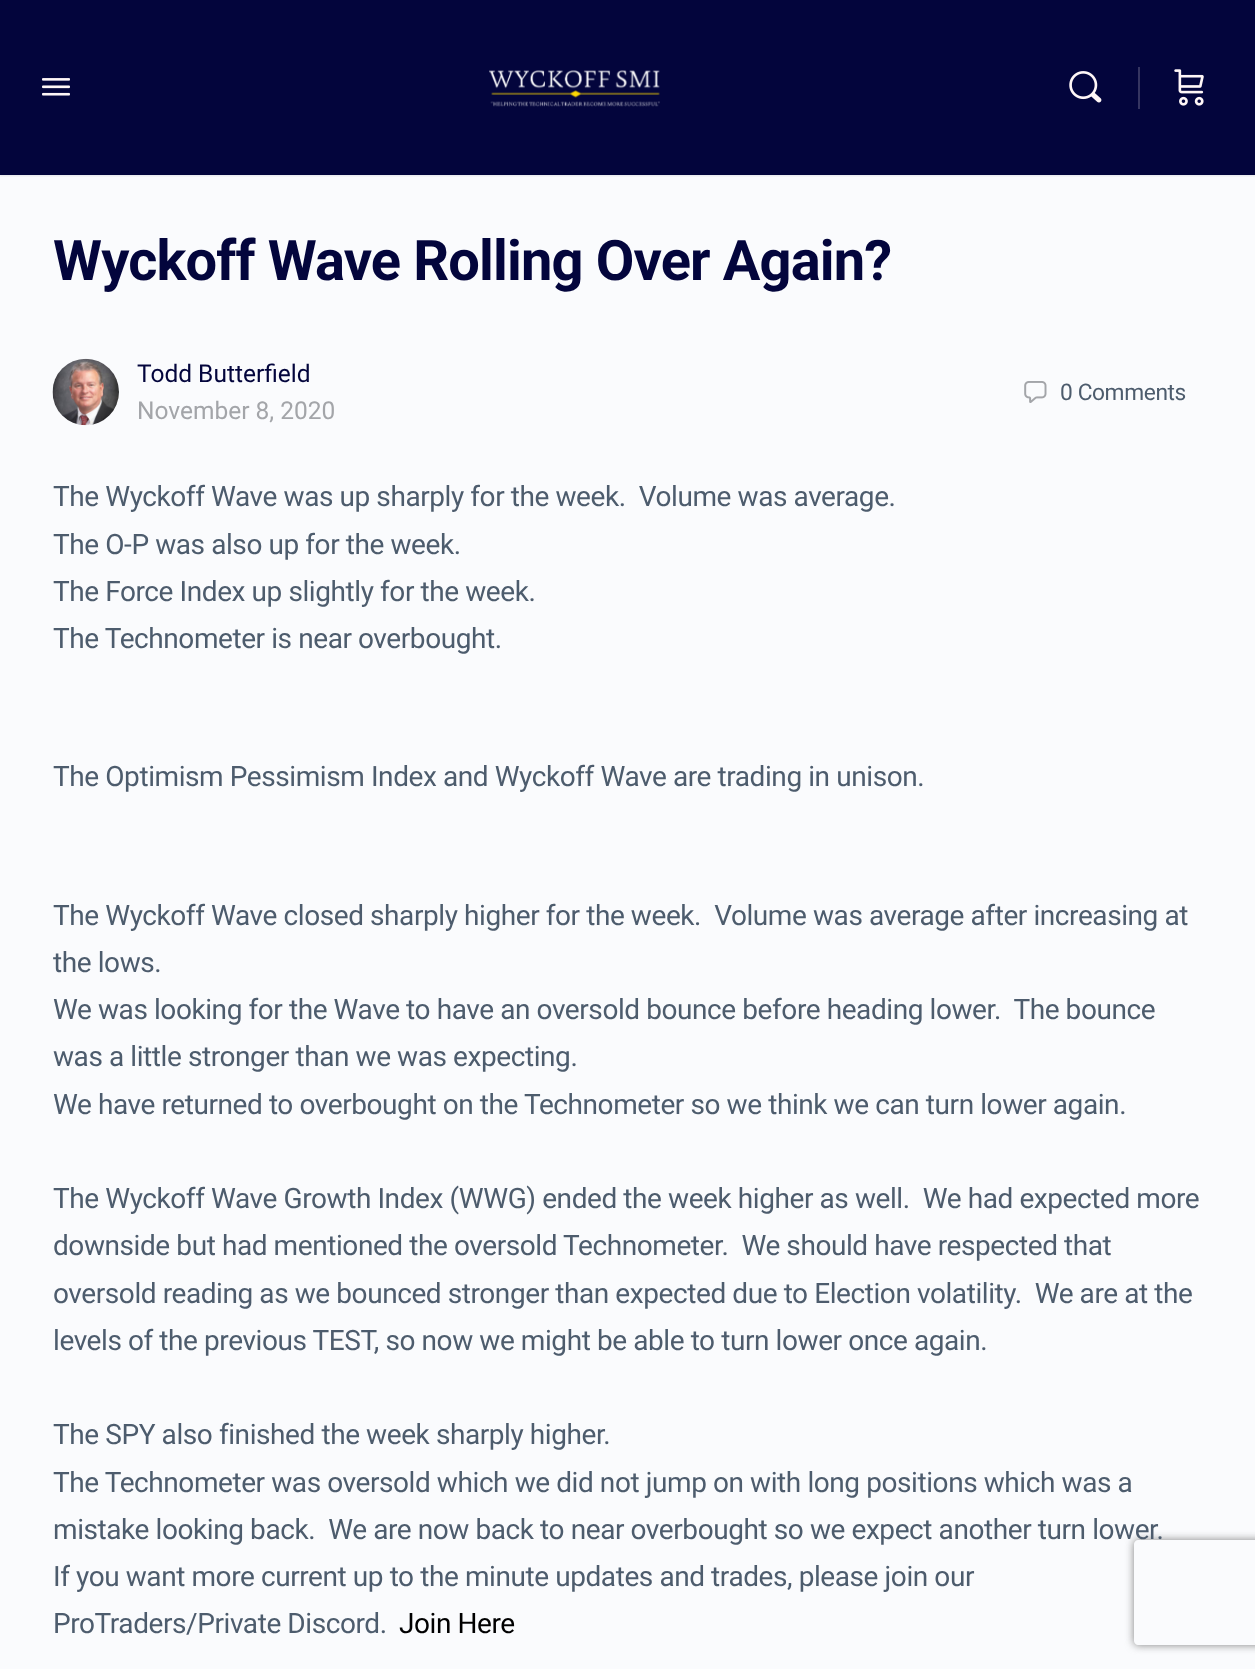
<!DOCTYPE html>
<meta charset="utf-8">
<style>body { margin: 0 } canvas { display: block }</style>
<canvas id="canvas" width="1255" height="1669"></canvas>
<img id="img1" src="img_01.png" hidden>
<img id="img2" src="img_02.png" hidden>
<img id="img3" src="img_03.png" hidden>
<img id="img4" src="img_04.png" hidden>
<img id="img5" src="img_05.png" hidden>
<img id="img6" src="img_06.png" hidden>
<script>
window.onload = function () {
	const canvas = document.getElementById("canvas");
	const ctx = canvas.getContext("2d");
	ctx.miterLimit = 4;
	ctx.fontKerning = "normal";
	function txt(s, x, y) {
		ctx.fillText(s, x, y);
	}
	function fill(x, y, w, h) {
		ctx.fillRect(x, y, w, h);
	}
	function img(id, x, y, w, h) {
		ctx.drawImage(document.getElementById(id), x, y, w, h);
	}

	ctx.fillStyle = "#FAFBFD";
	fill(0, 0, 1255, 1669);
	ctx.fillStyle = "rgba(65, 71, 108, 0.15)";
	ctx.filter = "blur(1px)";
	ctx.beginPath();
	ctx.rect(0, 0, 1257, 175);
	ctx.fill();
	ctx.filter = "none";
	ctx.fillStyle = "rgba(139, 141, 157, 0.05)";
	ctx.beginPath();
	ctx.moveTo(0, 175);
	ctx.lineTo(0, 177);
	ctx.lineTo(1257, 177);
	ctx.lineTo(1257, 2);
	ctx.lineTo(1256, 2);
	ctx.lineTo(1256, 175);
	ctx.closePath();
	ctx.fill();
	ctx.fillStyle = "#03053C";
	fill(0, 0, 1255, 175);
	img("img1", 42, 78, 28, 18);
	img("img2", 489, 70, 171, 37);
	img("img3", 1069, 71, 33, 32);
	ctx.fillStyle = "#353561";
	fill(1138, 67, 2, 42);
	img("img4", 1174, 69, 30, 37);
	img("img5", 52, 358, 67, 68);
	img("img6", 1024, 381, 23, 22);
	ctx.save();
	ctx.beginPath();
	ctx.moveTo(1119, 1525);
	ctx.lineTo(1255, 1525);
	ctx.lineTo(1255, 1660);
	ctx.lineTo(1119, 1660);
	ctx.closePath();
	ctx.moveTo(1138, 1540);
	ctx.lineTo(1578, 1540);
	ctx.bezierCurveTo(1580, 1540, 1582, 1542, 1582, 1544);
	ctx.lineTo(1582, 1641);
	ctx.bezierCurveTo(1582, 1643, 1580, 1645, 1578, 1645);
	ctx.lineTo(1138, 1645);
	ctx.bezierCurveTo(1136, 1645, 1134, 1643, 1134, 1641);
	ctx.lineTo(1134, 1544);
	ctx.bezierCurveTo(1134, 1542, 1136, 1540, 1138, 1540);
	ctx.closePath();
	ctx.clip("evenodd");
	ctx.fillStyle = "#808080";
	ctx.filter = "blur(4.5px)";
	ctx.beginPath();
	ctx.roundRect(1134, 1540, 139, 105, 4);
	ctx.fill();
	ctx.filter = "none";
	ctx.restore();
	ctx.letterSpacing = "-0.85px";
	ctx.font = "bold 56px Roboto";
	ctx.fillStyle = "#03053C";
	txt("Wyckoff Wave Rolling Over Again?", 53, 280);
	ctx.letterSpacing = "0px";
	ctx.font = "24.5px Roboto";
	txt("Todd Butterfield", 137, 382);
	ctx.fillStyle = "#A3A5A9";
	txt("November 8, 2020", 137, 419);
	ctx.letterSpacing = "-0.4px";
	ctx.font = "22.75px Roboto";
	ctx.fillStyle = "#4D5C6D";
	txt("0 Comments", 1060, 400);
	ctx.letterSpacing = "-0.42px";
	ctx.font = "28px Roboto";
	txt("The Wyckoff Wave was up sharply for the week.  Volume was average.", 53, 506);
	txt("The O-P was also up for the week.", 53, 554);
	txt("The Force Index up slightly for the week.", 53, 601);
	txt("The Technometer is near overbought.", 53, 648);
	txt("The Optimism Pessimism Index and Wyckoff Wave are trading in unison.", 53, 786);
	txt("The Wyckoff Wave closed sharply higher for the week.  Volume was average after increasing at", 53, 925);
	txt("the lows.", 53, 972);
	txt("We was looking for the Wave to have an oversold bounce before heading lower.  The bounce", 53, 1019);
	txt("was a little stronger than we was expecting.", 53, 1066);
	txt("We have returned to overbought on the Technometer so we think we can turn lower again.", 53, 1114);
	txt("The Wyckoff Wave Growth Index (WWG) ended the week higher as well.  We had expected more", 53, 1208);
	txt("downside but had mentioned the oversold Technometer.  We should have respected that", 53, 1255);
	txt("oversold reading as we bounced stronger than expected due to Election volatility.  We are at the", 53, 1303);
	txt("levels of the previous TEST, so now we might be able to turn lower once again.", 53, 1350);
	txt("The SPY also finished the week sharply higher.", 53, 1444);
	txt("The Technometer was oversold which we did not jump on with long positions which was a", 53, 1492);
	txt("mistake looking back.  We are now back to near overbought so we expect another turn lower.", 53, 1539);
	txt("If you want more current up to the minute updates and trades, please join our", 53, 1586);
	txt("ProTraders/Private Discord.", 53, 1633);
	ctx.fillStyle = "#000000";
	txt("Join Here", 399, 1633);
};
</script>
